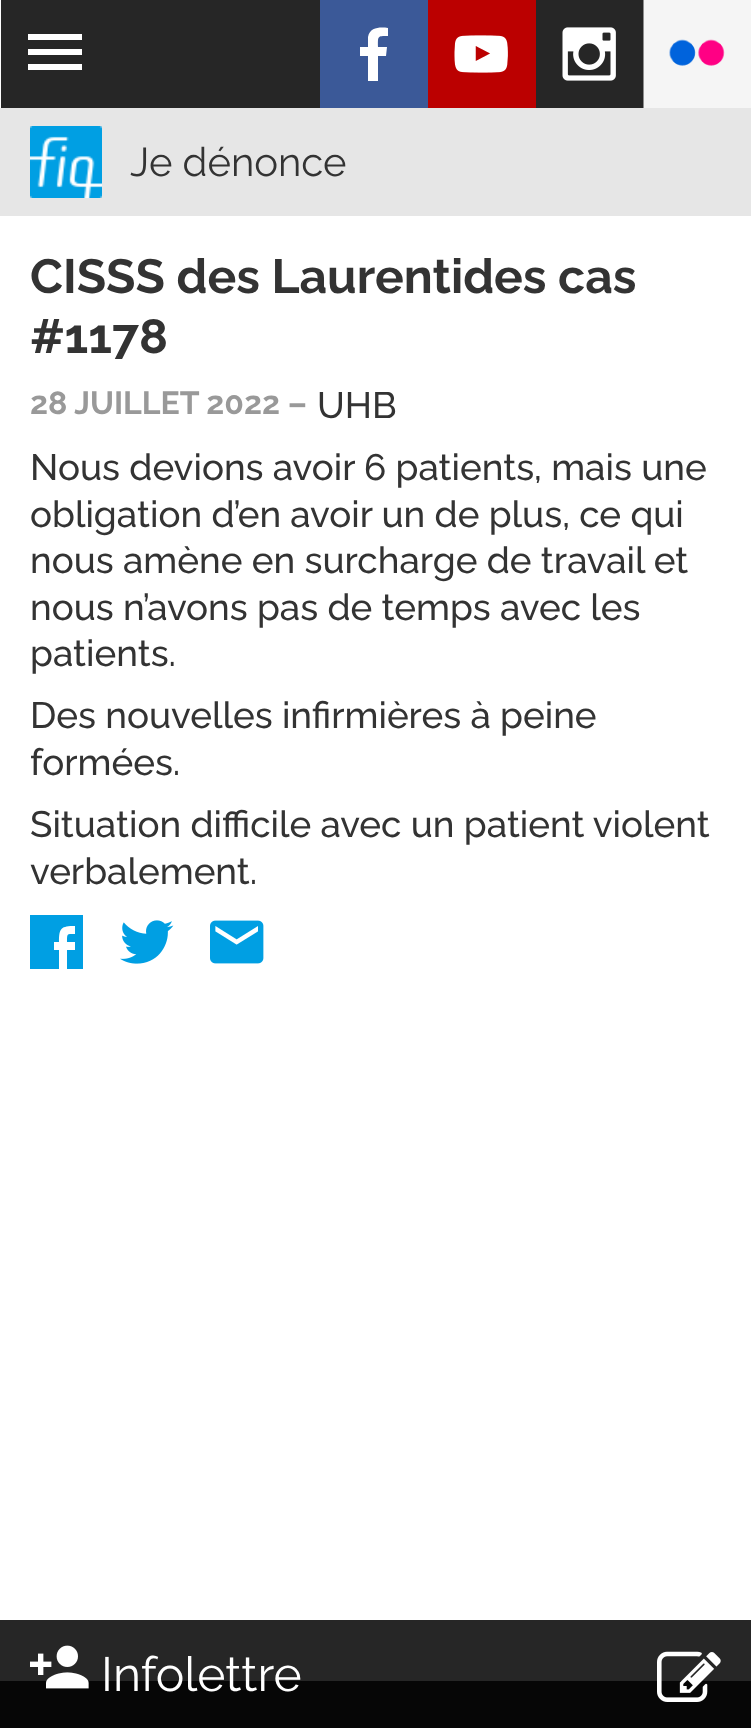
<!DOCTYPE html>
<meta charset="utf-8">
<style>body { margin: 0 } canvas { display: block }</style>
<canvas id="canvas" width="751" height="1728"></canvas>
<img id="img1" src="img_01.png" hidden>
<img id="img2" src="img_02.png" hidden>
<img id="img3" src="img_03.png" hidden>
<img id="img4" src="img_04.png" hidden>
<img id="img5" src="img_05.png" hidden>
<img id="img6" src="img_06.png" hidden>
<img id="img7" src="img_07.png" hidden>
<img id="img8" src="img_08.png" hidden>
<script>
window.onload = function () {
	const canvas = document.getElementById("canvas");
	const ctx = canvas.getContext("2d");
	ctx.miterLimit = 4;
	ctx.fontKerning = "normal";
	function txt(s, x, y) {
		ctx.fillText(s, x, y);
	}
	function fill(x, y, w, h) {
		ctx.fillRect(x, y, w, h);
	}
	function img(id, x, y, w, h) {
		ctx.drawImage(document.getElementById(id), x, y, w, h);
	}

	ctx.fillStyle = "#FFFFFF";
	fill(0, 0, 751, 1728);
	ctx.fillStyle = "#262626";
	fill(0, 1620, 751, 61);
	fill(1, 0, 643, 108);
	ctx.fillStyle = "#FFFFFF";
	ctx.beginPath();
	ctx.moveTo(28, 70);
	ctx.lineTo(28, 64);
	ctx.lineTo(82, 64);
	ctx.lineTo(82, 70);
	ctx.closePath();
	ctx.moveTo(28, 55);
	ctx.lineTo(28, 49);
	ctx.lineTo(82, 49);
	ctx.lineTo(82, 55);
	ctx.closePath();
	ctx.moveTo(28, 34);
	ctx.lineTo(82, 34);
	ctx.lineTo(82, 40);
	ctx.lineTo(28, 40);
	ctx.closePath();
	ctx.fill();
	ctx.fillStyle = "#3B5998";
	fill(320, 0, 108, 108);
	ctx.fillStyle = "#FFFFFF";
	ctx.beginPath();
	ctx.moveTo(378, 81);
	ctx.lineTo(368, 81);
	ctx.lineTo(368, 56);
	ctx.lineTo(360, 56);
	ctx.lineTo(360, 47);
	ctx.lineTo(368, 47);
	ctx.lineTo(368, 37);
	ctx.bezierCurveTo(370, 27, 380, 27, 388, 28);
	ctx.lineTo(388, 36);
	ctx.bezierCurveTo(377, 36, 378, 36, 378, 47);
	ctx.lineTo(387, 47);
	ctx.lineTo(386, 56);
	ctx.lineTo(378, 56);
	ctx.closePath();
	ctx.fill();
	ctx.fillStyle = "#BB0000";
	fill(428, 0, 108, 108);
	img("img1", 454, 35, 54, 38);
	img("img2", 562, 27, 54, 54);
	ctx.fillStyle = "#F5F5F5";
	fill(725, 0, 26, 108);
	img("img3", 643, 0, 82, 108);
	ctx.fillStyle = "#E6E6E6";
	fill(0, 108, 751, 108);
	img("img4", 30, 126, 72, 72);
	ctx.fillStyle = "#009FE3";
	ctx.beginPath();
	ctx.moveTo(75, 926);
	ctx.bezierCurveTo(61, 926, 59, 928, 59, 942);
	ctx.lineTo(54, 942);
	ctx.lineTo(54, 950);
	ctx.lineTo(59, 950);
	ctx.lineTo(59, 969);
	ctx.lineTo(67, 969);
	ctx.lineTo(67, 950);
	ctx.lineTo(75, 950);
	ctx.lineTo(75, 942);
	ctx.lineTo(67, 942);
	ctx.bezierCurveTo(67, 933, 67, 934, 75, 934);
	ctx.closePath();
	ctx.moveTo(30, 915);
	ctx.lineTo(83, 915);
	ctx.lineTo(83, 969);
	ctx.lineTo(30, 969);
	ctx.closePath();
	ctx.fill();
	img("img5", 120, 920, 54, 44);
	img("img6", 210, 920, 54, 44);
	ctx.fillStyle = "#060606";
	fill(0, 1681, 751, 47);
	img("img7", 30, 1645, 59, 44);
	img("img8", 657, 1651, 64, 51);
	ctx.font = "40px Raleway";
	ctx.fillStyle = "#333333";
	txt("Je dénonce", 130, 176);
	ctx.font = "bold 48px Raleway";
	txt("CISSS des Laurentides cas", 30, 293);
	txt("#1178", 30, 353);
	ctx.font = "bold 32px Raleway";
	ctx.fillStyle = "#999999";
	txt("28 JUILLET 2022 –", 30, 414);
	ctx.font = "500 36.75px Raleway";
	ctx.fillStyle = "#333333";
	txt("UHB", 317, 418);
	txt("Nous devions avoir 6 patients, mais une", 30, 480);
	txt("obligation d’en avoir un de plus, ce qui", 30, 527);
	txt("nous amène en surcharge de travail et", 30, 573);
	txt("nous n’avons pas de temps avec les", 30, 620);
	txt("patients.", 30, 666);
	txt("Des nouvelles infirmières à peine", 30, 728);
	txt("formées.", 30, 775);
	txt("Situation difficile avec un patient violent", 30, 837);
	txt("verbalement.", 30, 884);
	ctx.font = "48px Raleway";
	ctx.fillStyle = "#FFFFFF";
	txt("Infolettre", 101, 1691);
};
</script>
